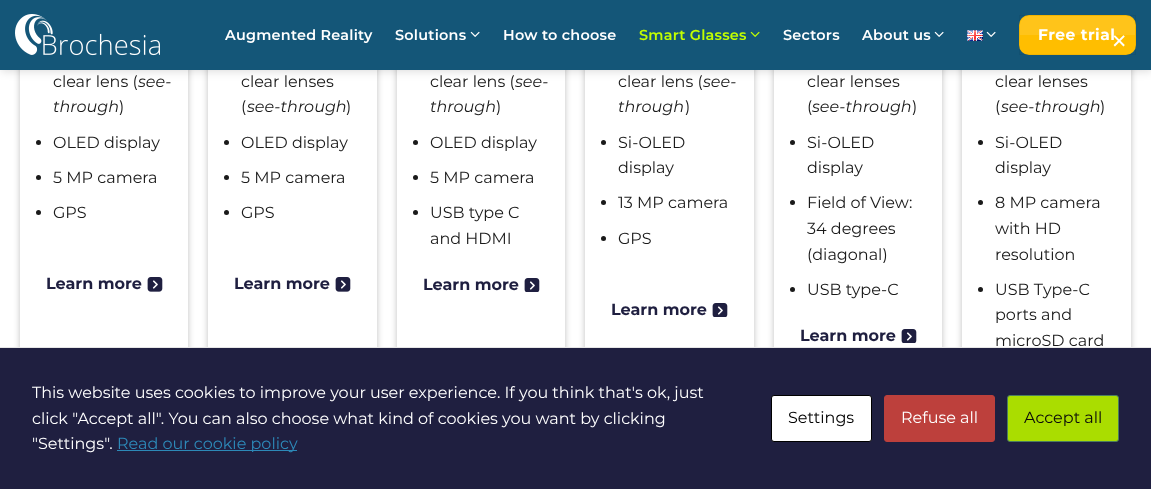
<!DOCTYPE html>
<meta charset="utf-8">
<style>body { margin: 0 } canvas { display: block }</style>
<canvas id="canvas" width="1151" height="489"></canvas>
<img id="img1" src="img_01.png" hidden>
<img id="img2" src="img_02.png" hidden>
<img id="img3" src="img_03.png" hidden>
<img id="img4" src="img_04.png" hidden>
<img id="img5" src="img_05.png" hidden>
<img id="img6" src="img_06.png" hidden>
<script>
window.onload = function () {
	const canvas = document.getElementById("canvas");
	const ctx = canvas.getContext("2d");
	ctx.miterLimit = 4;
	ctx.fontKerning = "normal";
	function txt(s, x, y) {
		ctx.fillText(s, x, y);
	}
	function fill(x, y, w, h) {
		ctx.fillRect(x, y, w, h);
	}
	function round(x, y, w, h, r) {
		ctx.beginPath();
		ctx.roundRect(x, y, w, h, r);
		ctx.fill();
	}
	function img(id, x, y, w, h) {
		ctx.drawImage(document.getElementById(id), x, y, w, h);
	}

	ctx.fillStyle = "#FFFFFF";
	fill(0, 0, 1151, 489);
	ctx.fillStyle = "rgba(0, 0, 0, 0.25)";
	ctx.filter = "blur(3px)";
	ctx.beginPath();
	ctx.roundRect(20, -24, 168, 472, 15);
	ctx.fill();
	ctx.filter = "none";
	ctx.fillStyle = "#FFFFFF";
	fill(23, 70, 162, 277);
	ctx.strokeStyle = "#FFFFFF";
	ctx.lineWidth = 3;
	ctx.strokeRect(21.5, -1.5, 165, 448);
	ctx.fillStyle = "rgba(0, 0, 0, 0.25)";
	ctx.filter = "blur(3px)";
	ctx.beginPath();
	ctx.roundRect(208, -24, 169, 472, 15);
	ctx.fill();
	ctx.filter = "none";
	ctx.fillStyle = "#FFFFFF";
	fill(211, 70, 163, 277);
	ctx.strokeRect(209.5, -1.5, 166, 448);
	ctx.fillStyle = "rgba(0, 0, 0, 0.25)";
	ctx.filter = "blur(3px)";
	ctx.beginPath();
	ctx.roundRect(397, -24, 168, 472, 15);
	ctx.fill();
	ctx.filter = "none";
	ctx.fillStyle = "#FFFFFF";
	fill(400, 70, 162, 277);
	ctx.strokeRect(398.5, -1.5, 165, 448);
	ctx.fillStyle = "rgba(0, 0, 0, 0.25)";
	ctx.filter = "blur(3px)";
	ctx.beginPath();
	ctx.roundRect(585, -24, 169, 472, 15);
	ctx.fill();
	ctx.filter = "none";
	ctx.fillStyle = "#FFFFFF";
	fill(588, 70, 163, 277);
	ctx.strokeRect(586.5, -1.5, 166, 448);
	ctx.fillStyle = "rgba(0, 0, 0, 0.25)";
	ctx.filter = "blur(3px)";
	ctx.beginPath();
	ctx.roundRect(774, -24, 168, 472, 15);
	ctx.fill();
	ctx.filter = "none";
	ctx.fillStyle = "#FFFFFF";
	fill(777, 70, 162, 277);
	ctx.strokeRect(775.5, -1.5, 165, 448);
	ctx.fillStyle = "rgba(0, 0, 0, 0.25)";
	ctx.filter = "blur(3px)";
	ctx.beginPath();
	ctx.roundRect(962, -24, 169, 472, 15);
	ctx.fill();
	ctx.filter = "none";
	ctx.fillStyle = "#FFFFFF";
	fill(965, 70, 163, 277);
	ctx.strokeRect(963.5, -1.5, 166, 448);
	ctx.fillStyle = "rgba(0, 0, 0, 0.15)";
	ctx.filter = "blur(5px)";
	ctx.beginPath();
	ctx.rect(1, 1, 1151, 70);
	ctx.fill();
	ctx.filter = "none";
	ctx.fillStyle = "#145678";
	fill(0, 0, 1151, 70);
	img("img1", 15, 14, 145, 42);
	img("img2", 470, 31, 10, 6);
	img("img3", 750, 31, 10, 6);
	img("img2", 934, 31, 10, 6);
	img("img4", 967, 30, 16, 11);
	img("img2", 986, 31, 10, 6);
	ctx.fillStyle = "#FFBE00";
	round(1019, 15, 117, 40, 10);
	ctx.strokeStyle = "rgba(0, 0, 0, 0.05)";
	ctx.lineWidth = 1;
	ctx.strokeRect(1019.5, 15.5, 116, 39);
	ctx.fillStyle = "rgba(255, 255, 255, 0.1)";
	ctx.beginPath();
	ctx.roundRect(1020, 16, 115, 19, [9, 9, 0, 0]);
	ctx.fill();
	ctx.fillStyle = "#1A1A1A";
	ctx.beginPath();
	ctx.arc(38.5, 142.5, 2.5, 0, Math.PI * 2);
	ctx.fill();
	ctx.beginPath();
	ctx.arc(38.5, 177.5, 2.5, 0, Math.PI * 2);
	ctx.fill();
	ctx.beginPath();
	ctx.arc(38.5, 212.5, 2.5, 0, Math.PI * 2);
	ctx.fill();
	img("img5", 147, 277, 16, 15);
	ctx.beginPath();
	ctx.arc(226.5, 142.5, 2.5, 0, Math.PI * 2);
	ctx.fill();
	ctx.beginPath();
	ctx.arc(226.5, 177.5, 2.5, 0, Math.PI * 2);
	ctx.fill();
	ctx.beginPath();
	ctx.arc(226.5, 212.5, 2.5, 0, Math.PI * 2);
	ctx.fill();
	img("img5", 335, 277, 16, 15);
	ctx.beginPath();
	ctx.arc(415.5, 142.5, 2.5, 0, Math.PI * 2);
	ctx.fill();
	ctx.beginPath();
	ctx.arc(415.5, 177.5, 2.5, 0, Math.PI * 2);
	ctx.fill();
	ctx.beginPath();
	ctx.arc(415.5, 212.5, 2.5, 0, Math.PI * 2);
	ctx.fill();
	img("img6", 524, 278, 16, 14);
	ctx.beginPath();
	ctx.arc(603.5, 142.5, 2.5, 0, Math.PI * 2);
	ctx.fill();
	ctx.beginPath();
	ctx.arc(603.5, 202.5, 2.5, 0, Math.PI * 2);
	ctx.fill();
	ctx.beginPath();
	ctx.arc(603.5, 238.5, 2.5, 0, Math.PI * 2);
	ctx.fill();
	img("img6", 712, 303, 16, 14);
	ctx.beginPath();
	ctx.arc(792.5, 142.5, 2.5, 0, Math.PI * 2);
	ctx.fill();
	ctx.beginPath();
	ctx.arc(792.5, 202.5, 2.5, 0, Math.PI * 2);
	ctx.fill();
	ctx.beginPath();
	ctx.arc(792.5, 289.5, 2.5, 0, Math.PI * 2);
	ctx.fill();
	img("img6", 901, 329, 16, 14);
	ctx.beginPath();
	ctx.arc(980.5, 142.5, 2.5, 0, Math.PI * 2);
	ctx.fill();
	ctx.beginPath();
	ctx.arc(980.5, 202.5, 2.5, 0, Math.PI * 2);
	ctx.fill();
	ctx.beginPath();
	ctx.arc(980.5, 289.5, 2.5, 0, Math.PI * 2);
	ctx.fill();
	ctx.fillStyle = "#1F1F40";
	fill(0, 348, 1151, 141);
	ctx.fillStyle = "#E6E6E6";
	fill(0, 347, 1151, 1);
	ctx.fillStyle = "#2D89B8";
	fill(117, 450, 180, 1);
	ctx.fillStyle = "#FFFFFF";
	ctx.beginPath();
	ctx.roundRect(771.5, 395.5, 100, 46, 2.5);
	ctx.fill();
	ctx.strokeStyle = "#000000";
	ctx.stroke();
	ctx.fillStyle = "#BD403C";
	ctx.beginPath();
	ctx.roundRect(884.5, 395.5, 110, 46, 2.5);
	ctx.fill();
	ctx.strokeStyle = "#BD403C";
	ctx.stroke();
	ctx.fillStyle = "#AADD00";
	ctx.beginPath();
	ctx.roundRect(1007.5, 395.5, 111, 46, 2.5);
	ctx.fill();
	ctx.strokeStyle = "#4B7D5E";
	ctx.stroke();
	ctx.letterSpacing = "0.25px";
	ctx.font = "600 14.4px Montserrat";
	ctx.fillStyle = "#FFFFFF";
	txt("Augmented Reality", 225, 40);
	txt("Solutions", 395, 40);
	txt("How to choose", 503, 40);
	ctx.fillStyle = "#C3FF00";
	txt("Smart Glasses", 639, 40);
	ctx.fillStyle = "#FFFFFF";
	txt("Sectors", 783, 40);
	txt("About us", 862, 40);
	ctx.letterSpacing = "0.5px";
	ctx.font = "bold 15.5px Montserrat";
	txt("Free trial", 1038, 40);
	ctx.letterSpacing = "0px";
	ctx.font = "16px Montserrat";
	ctx.fillStyle = "#1A1A1A";
	txt("clear lens (", 53, 87);
	ctx.font = "italic 16px Montserrat";
	txt("see-", 138, 87);
	txt("through", 53, 112);
	ctx.font = "16px Montserrat";
	txt(")", 119, 112);
	txt("OLED display", 53, 148);
	txt("5 MP camera", 53, 183);
	txt("GPS", 53, 218);
	ctx.font = "bold 16px Montserrat";
	ctx.fillStyle = "#1F1F40";
	txt("Learn more", 46, 289);
	ctx.font = "16px Montserrat";
	ctx.fillStyle = "#1A1A1A";
	txt("clear lenses", 241, 87);
	txt("(", 241, 112);
	ctx.font = "italic 16px Montserrat";
	txt("see-through", 247, 112);
	ctx.font = "16px Montserrat";
	txt(")", 346, 112);
	txt("OLED display", 241, 148);
	txt("5 MP camera", 241, 183);
	txt("GPS", 241, 218);
	ctx.font = "bold 16px Montserrat";
	ctx.fillStyle = "#1F1F40";
	txt("Learn more", 234, 289);
	ctx.font = "16px Montserrat";
	ctx.fillStyle = "#1A1A1A";
	txt("clear lens (", 430, 87);
	ctx.font = "italic 16px Montserrat";
	txt("see-", 515, 87);
	txt("through", 430, 112);
	ctx.font = "16px Montserrat";
	txt(")", 496, 112);
	txt("OLED display", 430, 148);
	txt("5 MP camera", 430, 183);
	txt("USB type C", 430, 218);
	txt("and HDMI", 430, 244);
	ctx.font = "bold 16px Montserrat";
	ctx.fillStyle = "#1F1F40";
	txt("Learn more", 423, 290);
	ctx.font = "16px Montserrat";
	ctx.fillStyle = "#1A1A1A";
	txt("clear lens (", 618, 87);
	ctx.font = "italic 16px Montserrat";
	txt("see-", 703, 87);
	txt("through", 618, 112);
	ctx.font = "16px Montserrat";
	txt(")", 685, 112);
	txt("Si-OLED", 618, 148);
	txt("display", 618, 173);
	txt("13 MP camera", 618, 208);
	txt("GPS", 618, 244);
	ctx.font = "bold 16px Montserrat";
	ctx.fillStyle = "#1F1F40";
	txt("Learn more", 611, 315);
	ctx.font = "16px Montserrat";
	ctx.fillStyle = "#1A1A1A";
	txt("clear lenses", 807, 87);
	txt("(", 807, 112);
	ctx.font = "italic 16px Montserrat";
	txt("see-through", 812, 112);
	ctx.font = "16px Montserrat";
	txt(")", 912, 112);
	txt("Si-OLED", 807, 148);
	txt("display", 807, 173);
	txt("Field of View:", 807, 208);
	txt("34 degrees", 807, 234);
	txt("(diagonal)", 807, 260);
	txt("USB type-C", 807, 295);
	ctx.font = "bold 16px Montserrat";
	ctx.fillStyle = "#1F1F40";
	txt("Learn more", 800, 341);
	ctx.font = "16px Montserrat";
	ctx.fillStyle = "#1A1A1A";
	txt("clear lenses", 995, 87);
	txt("(", 995, 112);
	ctx.font = "italic 16px Montserrat";
	txt("see-through", 1001, 112);
	ctx.font = "16px Montserrat";
	txt(")", 1100, 112);
	txt("Si-OLED", 995, 148);
	txt("display", 995, 173);
	txt("8 MP camera", 995, 208);
	txt("with HD", 995, 234);
	txt("resolution", 995, 260);
	txt("USB Type-C", 995, 295);
	txt("ports and", 995, 320);
	txt("microSD card", 995, 346);
	ctx.font = "32px Montserrat";
	ctx.fillStyle = "#FFFFFF";
	txt("×", 1110, 52);
	ctx.font = "16px Montserrat";
	txt("This website uses cookies to improve your user experience. If you think that's ok, just", 32, 398);
	txt("click \"Accept all\". You can also choose what kind of cookies you want by clicking", 32, 424);
	txt("\"Settings\".", 32, 449);
	ctx.fillStyle = "#2D89B8";
	txt("Read our cookie policy", 117, 449);
	ctx.fillStyle = "#000000";
	txt("Settings", 788, 423);
	ctx.fillStyle = "#FFFFFF";
	txt("Refuse all", 901, 423);
	ctx.fillStyle = "#0A0A0A";
	txt("Accept all", 1024, 423);
};
</script>
